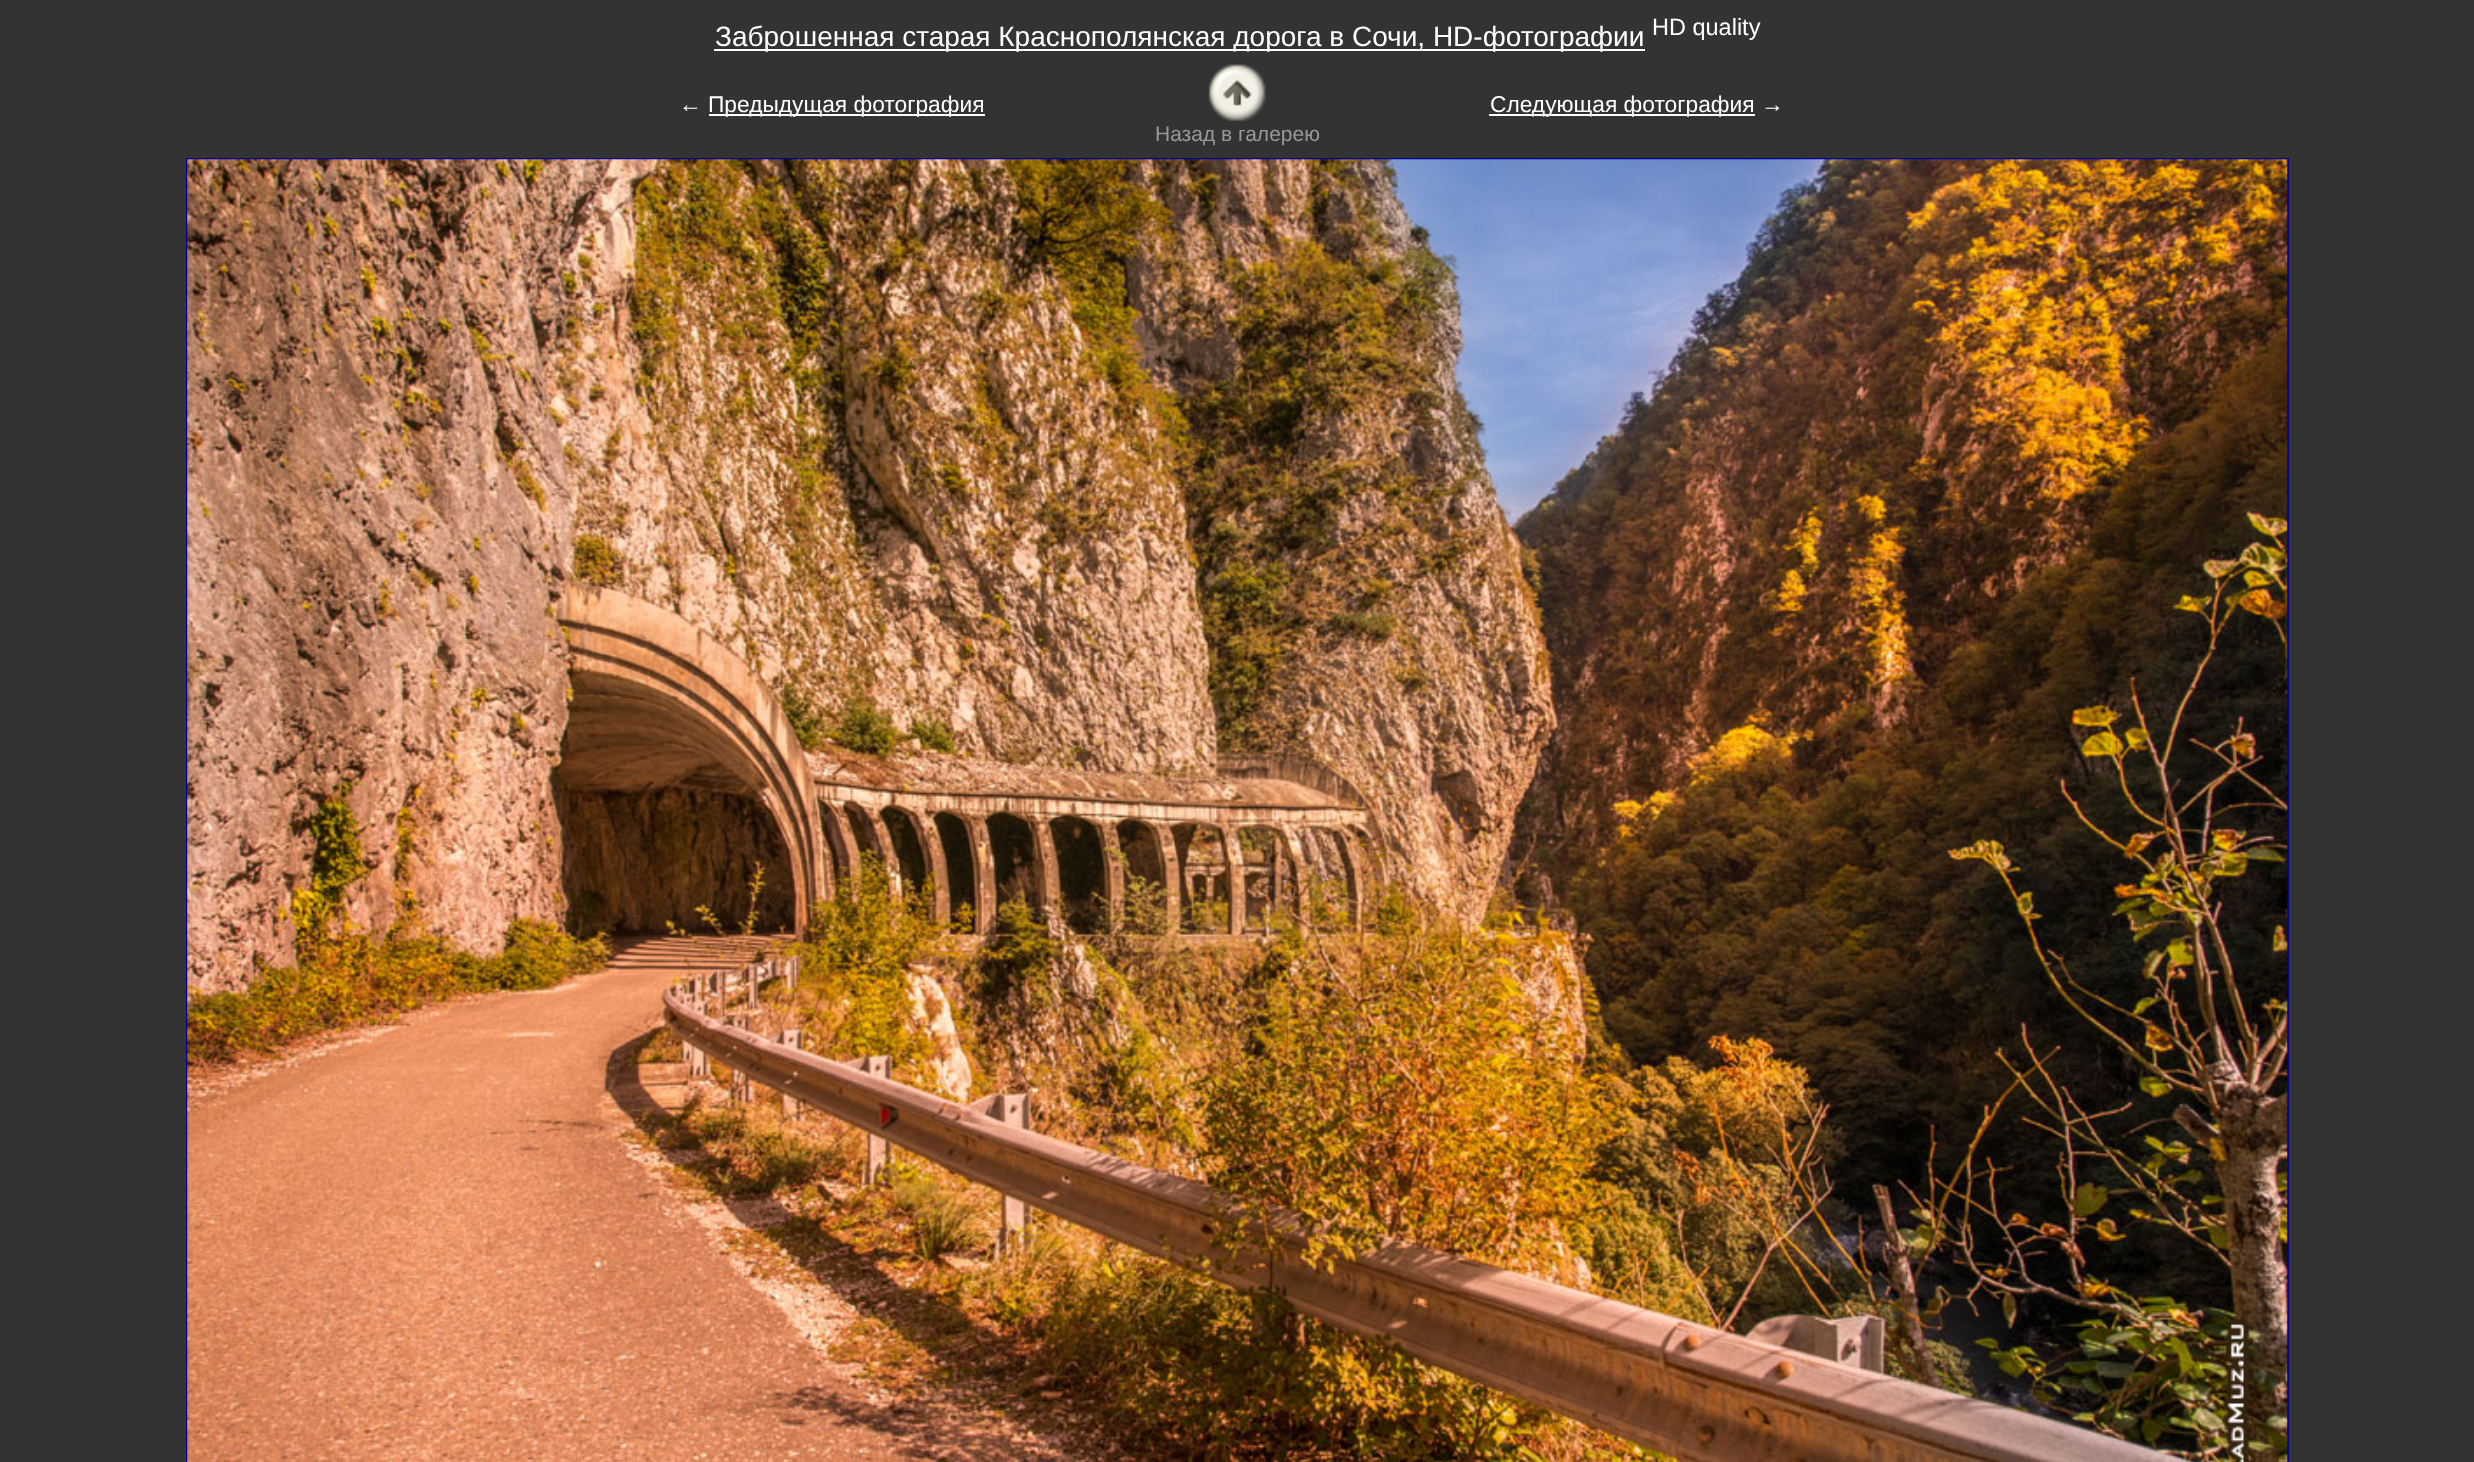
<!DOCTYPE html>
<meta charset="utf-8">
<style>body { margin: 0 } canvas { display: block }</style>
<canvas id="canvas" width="2474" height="1462"></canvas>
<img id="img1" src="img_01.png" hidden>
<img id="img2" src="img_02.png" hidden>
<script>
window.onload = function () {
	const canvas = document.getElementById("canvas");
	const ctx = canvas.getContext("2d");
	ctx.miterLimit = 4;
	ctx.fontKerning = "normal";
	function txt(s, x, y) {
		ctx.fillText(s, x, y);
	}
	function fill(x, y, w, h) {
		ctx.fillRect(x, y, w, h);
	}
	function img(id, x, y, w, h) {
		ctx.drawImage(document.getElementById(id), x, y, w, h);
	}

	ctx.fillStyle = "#333333";
	fill(0, 0, 2474, 1462);
	ctx.fillStyle = "#FFFFFF";
	fill(714, 49, 931, 2);
	fill(709, 114, 276, 2);
	fill(1489, 114, 266, 2);
	img("img1", 1208, 64, 58, 58);
	ctx.strokeStyle = "#000099";
	ctx.lineWidth = 2;
	ctx.strokeRect(187, 159, 2101, 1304);
	img("img2", 187, 159, 2101, 1303);
	ctx.font = "28px Liberation Sans";
	txt("Заброшенная старая Краснополянская дорога в Сочи, HD-фотографии", 715, 46);
	ctx.font = "23.5px Liberation Sans";
	txt("HD quality", 1652, 35);
	ctx.font = "22.75px Liberation Sans";
	txt("←", 679, 112);
	txt("Предыдущая фотография", 708, 112);
	txt("Следующая фотография →", 1490, 112);
	ctx.font = "21px Liberation Sans";
	ctx.fillStyle = "#999999";
	txt("Назад в галерею", 1155, 141);
};
</script>
